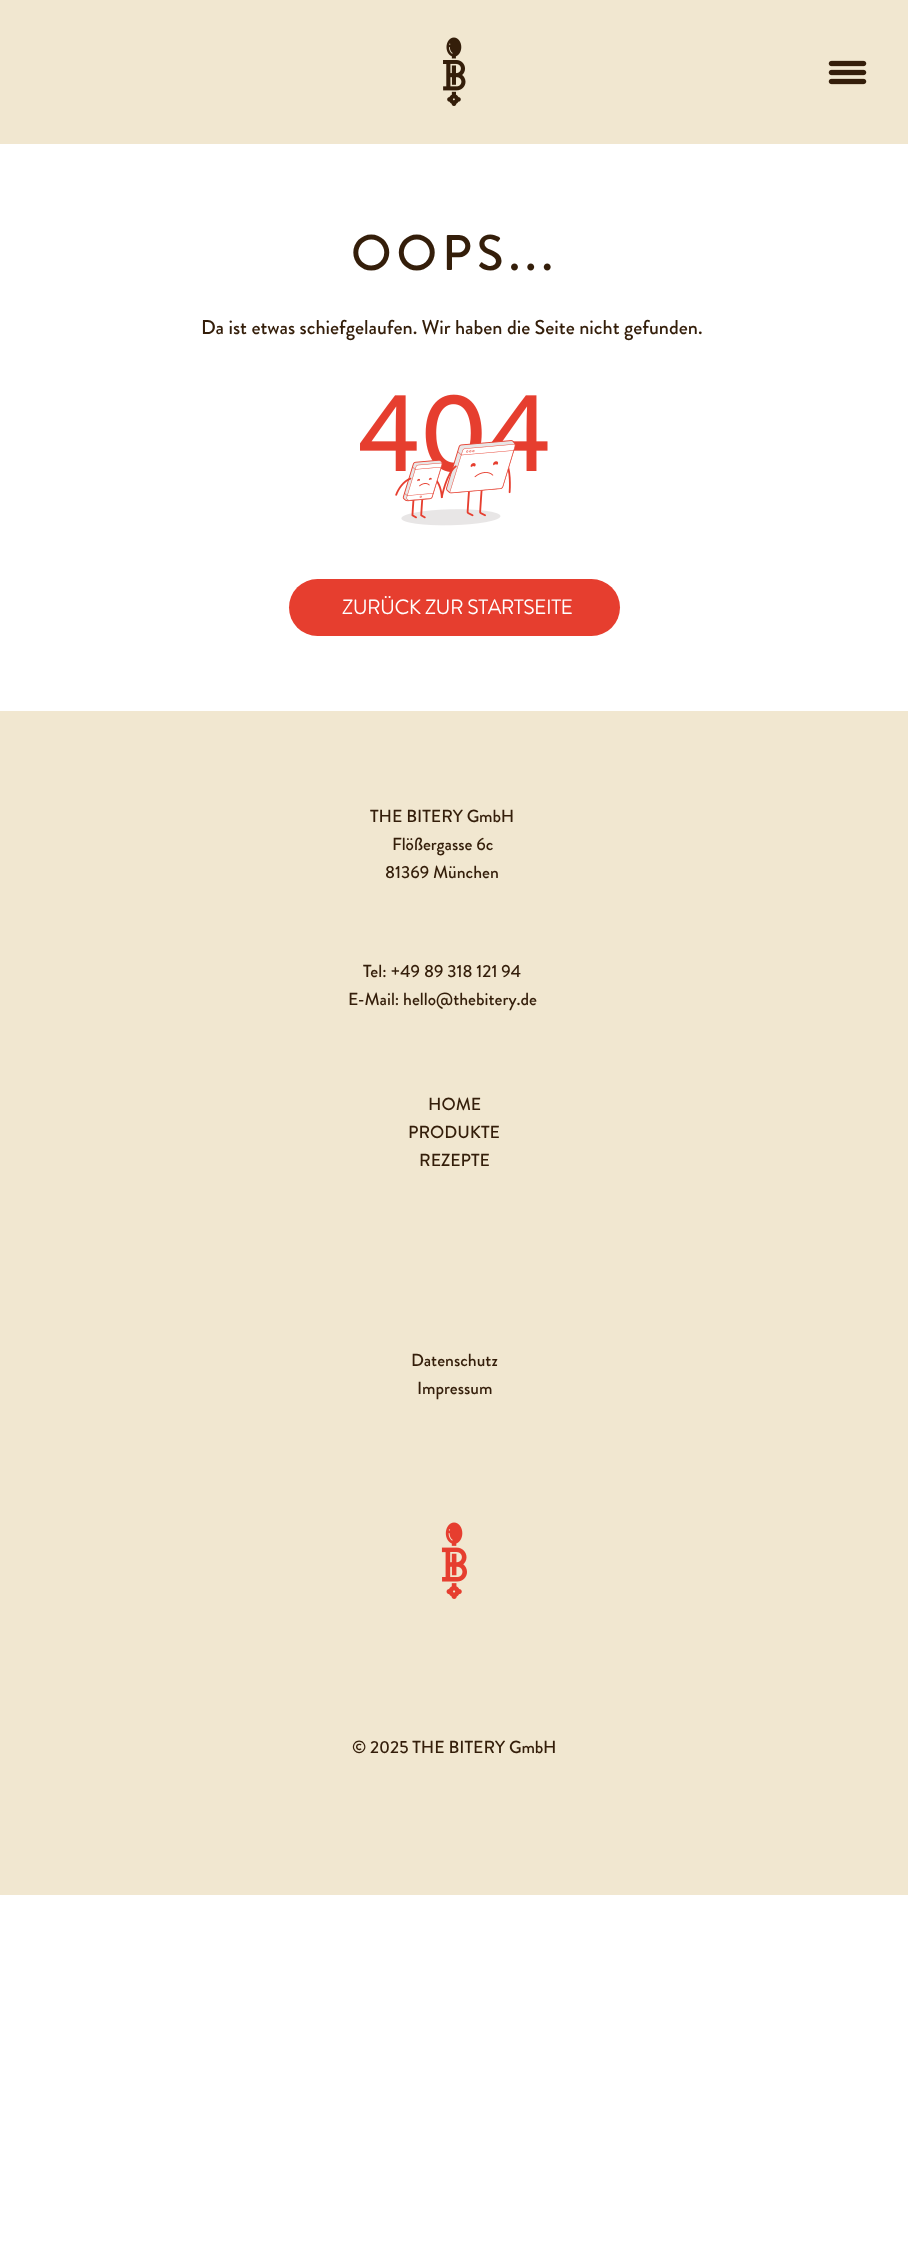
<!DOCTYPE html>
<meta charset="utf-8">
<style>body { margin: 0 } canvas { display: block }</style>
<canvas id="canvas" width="908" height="2249"></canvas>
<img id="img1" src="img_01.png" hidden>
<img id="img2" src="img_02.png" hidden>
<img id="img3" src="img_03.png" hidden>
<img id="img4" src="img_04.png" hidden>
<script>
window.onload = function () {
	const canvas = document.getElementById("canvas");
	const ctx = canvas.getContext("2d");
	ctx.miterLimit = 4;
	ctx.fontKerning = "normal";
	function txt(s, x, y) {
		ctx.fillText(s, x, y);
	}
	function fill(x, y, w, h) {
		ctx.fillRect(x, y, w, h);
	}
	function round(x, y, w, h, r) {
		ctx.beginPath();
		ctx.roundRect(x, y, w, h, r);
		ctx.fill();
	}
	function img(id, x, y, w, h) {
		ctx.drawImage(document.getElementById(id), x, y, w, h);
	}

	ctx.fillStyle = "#FFFFFF";
	fill(0, 0, 908, 2249);
	ctx.fillStyle = "#F1E7D0";
	fill(0, 0, 908, 144);
	img("img1", 443, 37, 23, 69);
	img("img2", 828, 60, 39, 25);
	img("img3", 360, 394, 188, 132);
	ctx.fillStyle = "#E63E2F";
	round(289, 579, 331, 57, 28.5);
	ctx.fillStyle = "#F1E7D0";
	fill(0, 711, 908, 1184);
	img("img4", 441, 1522, 26, 77);
	ctx.letterSpacing = "5px";
	ctx.font = "500 50px Brandon Grotesque";
	ctx.fillStyle = "#341E0A";
	txt("OOPS...", 351, 270);
	ctx.letterSpacing = "0px";
	ctx.font = "500 20px Brandon Grotesque";
	txt("Da ist etwas schiefgelaufen. Wir haben die Seite nicht gefunden.", 201, 334);
	ctx.font = "bold 20px 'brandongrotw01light'";
	ctx.fillStyle = "#FFFFFF";
	txt("ZURÜCK ZUR STARTSEITE", 342, 614);
	ctx.font = "500 17.5px Brandon Grotesque";
	ctx.fillStyle = "#341E0A";
	txt("THE BITERY GmbH", 370, 822);
	txt("Flößergasse 6c", 392, 850);
	txt("81369 München", 385, 878);
	txt("Tel: +49 89 318 121 94", 363, 977);
	txt("E-Mail: hello@thebitery.de", 348, 1005);
	txt("HOME", 428, 1110);
	txt("PRODUKTE", 408, 1138);
	txt("REZEPTE", 419, 1166);
	txt("Datenschutz", 411, 1366);
	txt("Impressum", 417, 1394);
	txt("© 2025 THE BITERY GmbH", 352, 1753);
};
</script>
